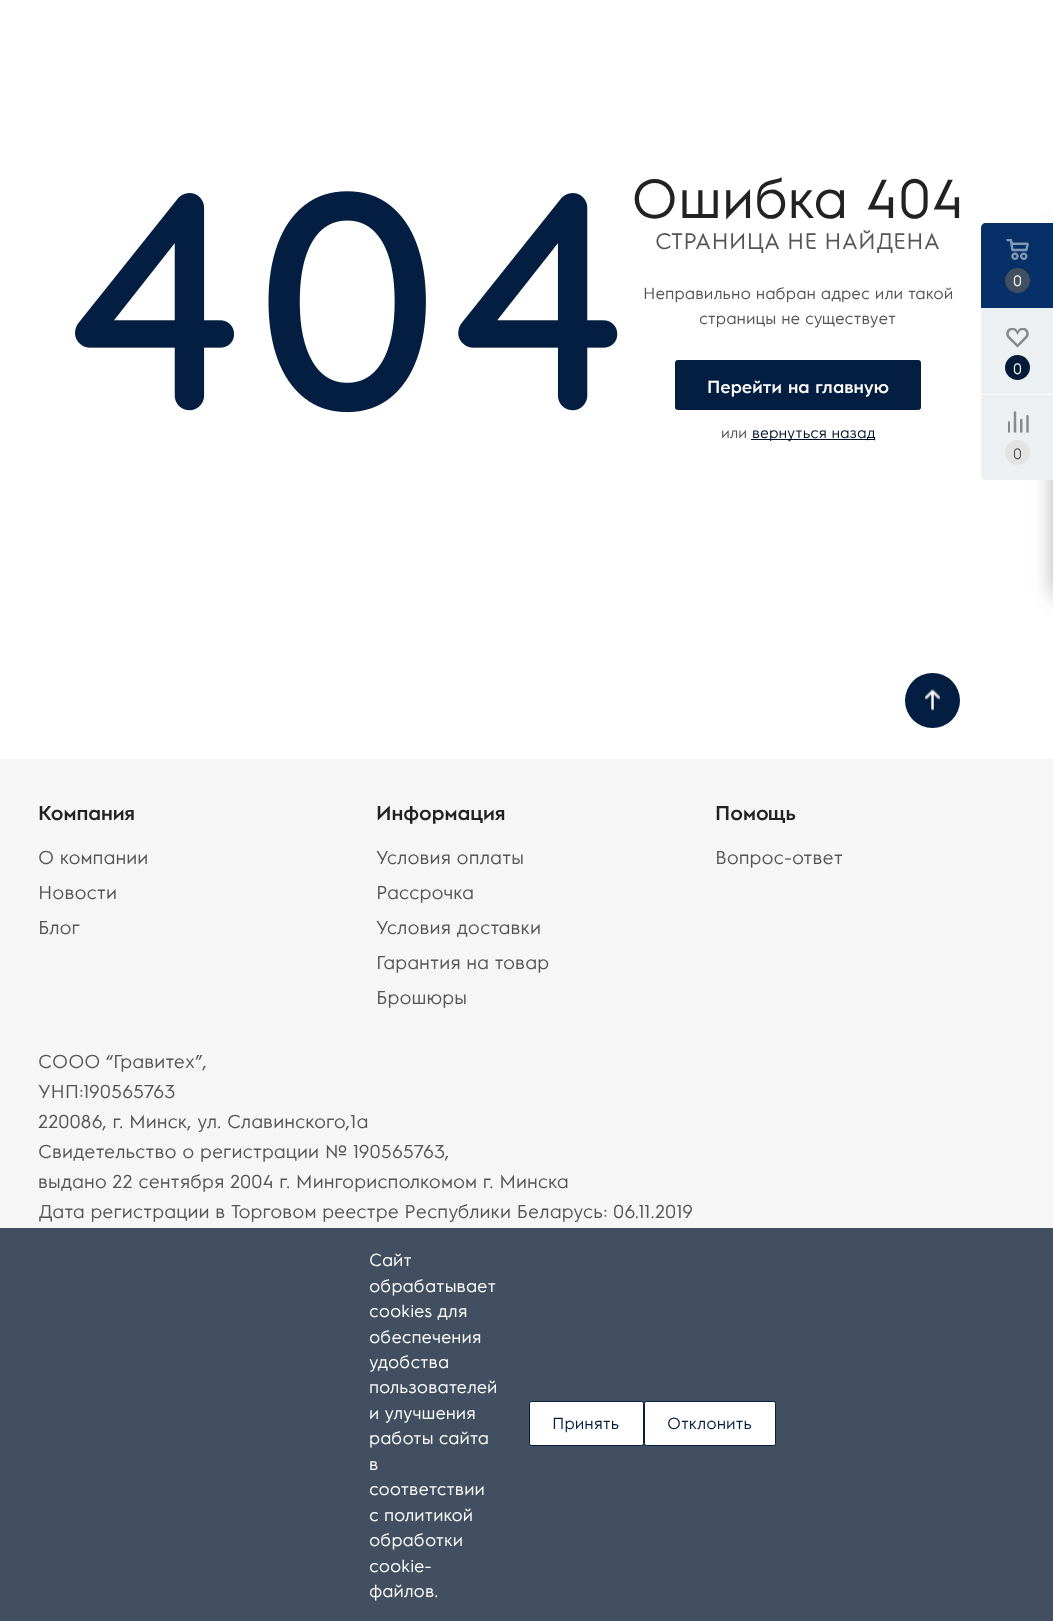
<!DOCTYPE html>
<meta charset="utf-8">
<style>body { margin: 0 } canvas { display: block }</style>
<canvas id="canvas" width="1053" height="1621"></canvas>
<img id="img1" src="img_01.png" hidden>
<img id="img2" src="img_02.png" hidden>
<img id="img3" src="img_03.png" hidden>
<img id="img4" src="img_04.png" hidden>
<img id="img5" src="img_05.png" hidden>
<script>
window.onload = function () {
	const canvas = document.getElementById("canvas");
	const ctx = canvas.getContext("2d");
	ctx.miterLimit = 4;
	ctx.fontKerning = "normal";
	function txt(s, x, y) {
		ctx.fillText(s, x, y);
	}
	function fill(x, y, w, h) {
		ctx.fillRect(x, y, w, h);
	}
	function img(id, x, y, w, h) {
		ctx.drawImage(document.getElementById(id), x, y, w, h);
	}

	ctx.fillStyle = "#FFFFFF";
	fill(0, 0, 1053, 1621);
	img("img1", 75, 191, 543, 222);
	ctx.fillStyle = "#041E41";
	ctx.beginPath();
	ctx.roundRect(675.5, 360.5, 245, 49, 2);
	ctx.fill();
	ctx.strokeStyle = "#041E41";
	ctx.stroke();
	ctx.fillStyle = "#021329";
	fill(751, 439, 124, 1);
	ctx.fillStyle = "rgba(44, 44, 44, 0.4)";
	ctx.filter = "blur(11px)";
	ctx.beginPath();
	ctx.roundRect(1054, 230, 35, 365, 2.5);
	ctx.fill();
	ctx.filter = "none";
	ctx.fillStyle = "#EDF0F3";
	ctx.beginPath();
	ctx.moveTo(986, 223);
	ctx.lineTo(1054, 223);
	ctx.lineTo(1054, 480);
	ctx.lineTo(986, 480);
	ctx.bezierCurveTo(983, 480, 981, 478, 981, 475);
	ctx.lineTo(981, 228);
	ctx.bezierCurveTo(981, 225, 983, 223, 986, 223);
	ctx.closePath();
	ctx.fill();
	ctx.fillStyle = "#063067";
	ctx.beginPath();
	ctx.moveTo(986, 223);
	ctx.lineTo(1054, 223);
	ctx.lineTo(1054, 308);
	ctx.lineTo(981, 308);
	ctx.lineTo(981, 228);
	ctx.bezierCurveTo(981, 225, 983, 223, 986, 223);
	ctx.closePath();
	ctx.fill();
	img("img2", 1006, 239, 23, 21);
	ctx.fillStyle = "#424F60";
	ctx.beginPath();
	ctx.arc(1017.5, 280.5, 12.5, 0, Math.PI * 2);
	ctx.fill();
	img("img3", 1006, 328, 23, 20);
	ctx.fillStyle = "#031A38";
	ctx.beginPath();
	ctx.arc(1017.5, 367.5, 12.5, 0, Math.PI * 2);
	ctx.fill();
	ctx.fillStyle = "#FFFFFF";
	fill(981, 394, 72, 1);
	img("img4", 1008, 411, 21, 22);
	ctx.fillStyle = "#E3E3E3";
	ctx.beginPath();
	ctx.arc(1017.5, 452.5, 12.5, 0, Math.PI * 2);
	ctx.fill();
	ctx.fillStyle = "#041E41";
	ctx.beginPath();
	ctx.arc(932.5, 700.5, 27.5, 0, Math.PI * 2);
	ctx.fill();
	img("img5", 925, 689, 15, 22);
	ctx.fillStyle = "#F6F6F7";
	fill(0, 759, 1053, 469);
	ctx.fillStyle = "#424F60";
	fill(0, 1228, 1053, 393);
	ctx.fillStyle = "#FFFFFF";
	ctx.beginPath();
	ctx.roundRect(529.5, 1401.5, 114, 44, 2);
	ctx.fill();
	ctx.stroke();
	ctx.beginPath();
	ctx.roundRect(644.5, 1401.5, 131, 44, 2);
	ctx.fill();
	ctx.stroke();
	ctx.font = "55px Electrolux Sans";
	ctx.fillStyle = "#222222";
	txt("Ошибка 404", 631, 218);
	ctx.font = "22.5px Electrolux Sans";
	ctx.fillStyle = "#555555";
	txt("СТРАНИЦА НЕ НАЙДЕНА", 655, 249);
	ctx.font = "16.25px Electrolux Sans";
	txt("Неправильно набран адрес или такой", 643, 299);
	txt("страницы не существует", 699, 324);
	ctx.font = "600 17.5px Electrolux Sans";
	ctx.fillStyle = "#FFFFFF";
	txt("Перейти на главную", 707, 393);
	ctx.font = "15px Electrolux Sans";
	ctx.fillStyle = "#555555";
	txt("или", 721, 438);
	ctx.fillStyle = "#021329";
	txt("вернуться назад", 752, 438);
	ctx.fillStyle = "#FFFFFF";
	txt("0", 1013, 286);
	txt("0", 1013, 374);
	ctx.fillStyle = "#555555";
	txt("0", 1013, 459);
	ctx.font = "600 20px Electrolux Sans";
	ctx.fillStyle = "#222222";
	txt("Компания", 38, 820);
	ctx.font = "18.75px Electrolux Sans";
	ctx.fillStyle = "#555555";
	txt("О компании", 38, 864);
	txt("Новости", 38, 899);
	txt("Блог", 38, 934);
	ctx.font = "600 20px Electrolux Sans";
	ctx.fillStyle = "#222222";
	txt("Информация", 376, 820);
	ctx.font = "18.75px Electrolux Sans";
	ctx.fillStyle = "#555555";
	txt("Условия оплаты", 376, 864);
	txt("Рассрочка", 376, 899);
	txt("Условия доставки", 376, 934);
	txt("Гарантия на товар", 376, 969);
	txt("Брошюры", 376, 1004);
	ctx.font = "600 20px Electrolux Sans";
	ctx.fillStyle = "#222222";
	txt("Помощь", 715, 820);
	ctx.font = "18.75px Electrolux Sans";
	ctx.fillStyle = "#555555";
	txt("Вопрос-ответ", 715, 864);
	txt("СООО “Гравитех”,", 38, 1068);
	txt("УНП:190565763", 38, 1098);
	txt("220086, г. Минск, ул. Славинского,1a", 38, 1128);
	txt("Свидетельство о регистрации № 190565763,", 38, 1158);
	txt("выдано 22 сентября 2004 г. Мингорисполкомом г. Минска", 38, 1188);
	txt("Дата регистрации в Торговом реестре Республики Беларусь: 06.11.2019", 38, 1218);
	ctx.font = "17.5px Electrolux Sans";
	ctx.fillStyle = "#FFFFFF";
	txt("Сайт", 369, 1266);
	txt("обрабатывает", 369, 1292);
	txt("cookies для", 369, 1317);
	txt("обеспечения", 369, 1343);
	txt("удобства", 369, 1368);
	txt("пользователей", 369, 1393);
	txt("и улучшения", 369, 1419);
	txt("работы сайта", 369, 1444);
	txt("в", 369, 1470);
	txt("соответствии", 369, 1495);
	txt("с политикой", 369, 1521);
	txt("обработки", 369, 1546);
	txt("cookie-", 369, 1572);
	txt("файлов.", 369, 1597);
	ctx.font = "16.25px Electrolux Sans";
	ctx.fillStyle = "#041E41";
	txt("Принять", 552, 1429);
	txt("Отклонить", 667, 1429);
};
</script>
